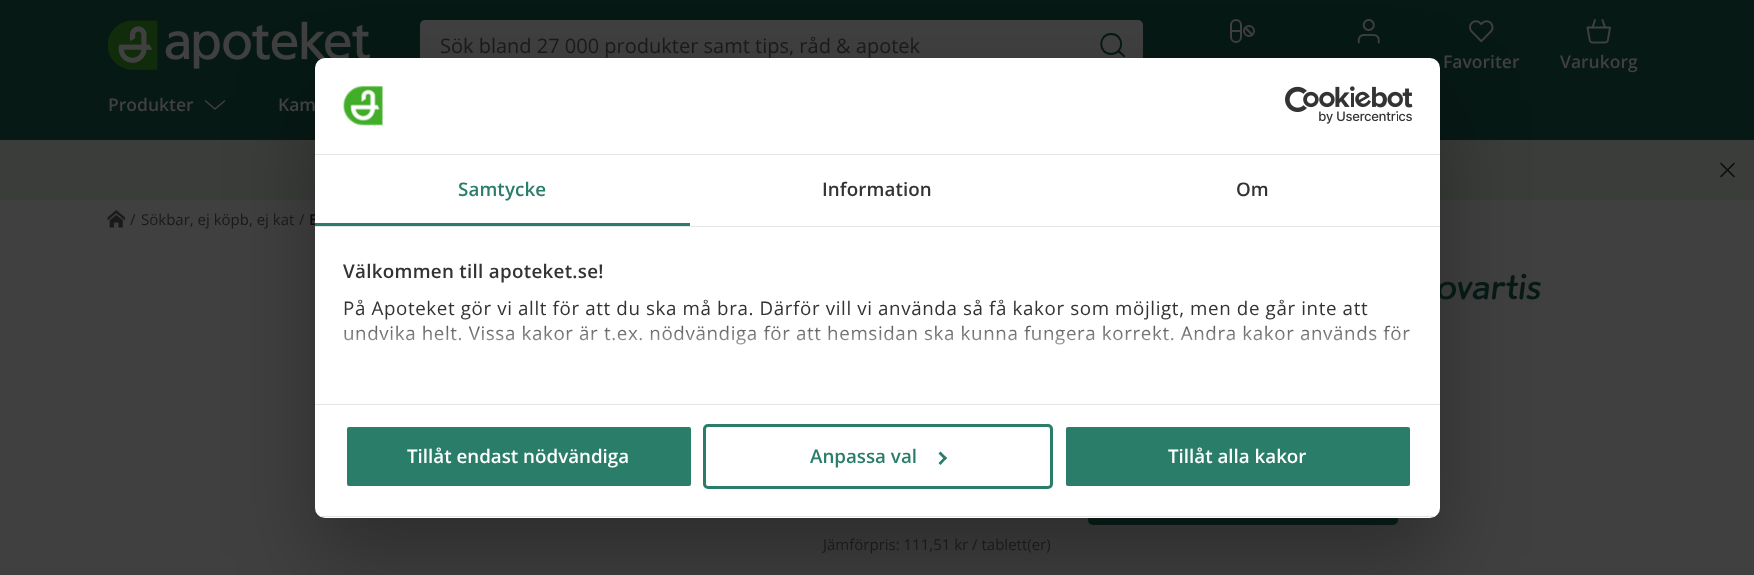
<!DOCTYPE html>
<meta charset="utf-8">
<style>body { margin: 0 } canvas { display: block }</style>
<canvas id="canvas" width="1754" height="575"></canvas>
<img id="img1" src="img_01.png" hidden>
<img id="img2" src="img_02.png" hidden>
<img id="img3" src="img_03.png" hidden>
<img id="img4" src="img_04.png" hidden>
<img id="img5" src="img_05.png" hidden>
<img id="img6" src="img_06.png" hidden>
<img id="img7" src="img_07.png" hidden>
<script>
window.onload = function () {
	const canvas = document.getElementById("canvas");
	const ctx = canvas.getContext("2d");
	ctx.miterLimit = 4;
	ctx.fontKerning = "normal";
	function txt(s, x, y) {
		ctx.fillText(s, x, y);
	}
	function fill(x, y, w, h) {
		ctx.fillRect(x, y, w, h);
	}
	function round(x, y, w, h, r) {
		ctx.beginPath();
		ctx.roundRect(x, y, w, h, r);
		ctx.fill();
	}
	function img(id, x, y, w, h) {
		ctx.drawImage(document.getElementById(id), x, y, w, h);
	}
	let gradient;

	ctx.fillStyle = "#404040";
	fill(0, 0, 1754, 575);
	ctx.fillStyle = "#071915";
	fill(0, 0, 1754, 140);
	img("img1", 108, 20, 262, 50);
	ctx.fillStyle = "#404040";
	ctx.beginPath();
	ctx.roundRect(420, 20, 663, 50, [5, 0, 0, 5]);
	ctx.fill();
	ctx.beginPath();
	ctx.roundRect(1083, 20, 60, 50, [0, 5, 5, 0]);
	ctx.fill();
	ctx.beginPath();
	ctx.moveTo(1111, 54);
	ctx.bezierCurveTo(1124.5, 54, 1124.5, 34, 1111, 34);
	ctx.bezierCurveTo(1098, 34, 1098, 54, 1111, 54);
	ctx.moveTo(1124, 56);
	ctx.lineTo(1118.5, 51);
	ctx.strokeStyle = "#071915";
	ctx.lineWidth = 1.9;
	ctx.lineCap = "round";
	ctx.lineJoin = "round";
	ctx.stroke();
	ctx.beginPath();
	ctx.roundRect(1231, 20, 10, 22, 5);
	ctx.strokeStyle = "#404040";
	ctx.lineWidth = 2;
	ctx.lineJoin = "miter";
	ctx.stroke();
	ctx.beginPath();
	ctx.arc(1249, 31, 5, 0, Math.PI * 2);
	ctx.lineWidth = 1.9;
	ctx.stroke();
	ctx.fillStyle = "rgba(64, 64, 64, 0.95)";
	fill(1231, 30, 10, 2);
	ctx.beginPath();
	ctx.moveTo(1245.5, 28);
	ctx.lineTo(1252.5, 35);
	ctx.lineCap = "butt";
	ctx.stroke();
	img("img2", 1357, 19, 23, 25);
	img("img3", 1469, 20, 25, 23);
	img("img4", 1586, 19, 25, 25);
	ctx.beginPath();
	ctx.moveTo(205.5, 101);
	ctx.lineTo(215, 109);
	ctx.lineTo(224.5, 101);
	ctx.lineWidth = 1.6;
	ctx.lineCap = "round";
	ctx.lineJoin = "round";
	ctx.stroke();
	ctx.fillStyle = "#3A3D3A";
	fill(0, 140, 1754, 60);
	ctx.beginPath();
	ctx.moveTo(1734, 163.5);
	ctx.lineTo(1721, 176.5);
	ctx.moveTo(1734, 176.5);
	ctx.lineTo(1721, 163.5);
	ctx.strokeStyle = "#0D0D0D";
	ctx.lineJoin = "miter";
	ctx.stroke();
	img("img5", 107, 210, 18, 18);
	ctx.fillStyle = "#0B1F1A";
	round(1088, 465, 310, 60, 5);
	ctx.fillStyle = "rgba(0, 0, 0, 0.3)";
	ctx.filter = "blur(42.5px)";
	ctx.beginPath();
	ctx.roundRect(315, 98, 1125, 460, 10);
	ctx.fill();
	ctx.filter = "none";
	ctx.font = "20px Open Sans";
	ctx.fillStyle = "#1A1A1A";
	txt("Sök bland 27 000 produkter samt tips, råd & apotek", 440, 53);
	ctx.font = "600 17.5px Open Sans";
	ctx.fillStyle = "#404040";
	txt("Favoriter", 1443, 68);
	txt("Varukorg", 1560, 68);
	txt("Produkter", 108, 111);
	txt("Kam", 278, 111);
	ctx.font = "15px Open Sans";
	ctx.fillStyle = "#1A1A1A";
	txt("/", 130, 225);
	txt("Sökbar, ej köpb, ej kat", 141, 225);
	txt("/", 299, 225);
	ctx.font = "600 15px Open Sans";
	ctx.fillStyle = "#0D0D0D";
	txt("E", 309, 225);
	ctx.font = "40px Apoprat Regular";
	ctx.fillStyle = "#071915";
	txt("ovartis", 1436, 299);
	ctx.font = "15px Open Sans";
	ctx.fillStyle = "#1A1A1A";
	txt("Jämförpris: 111,51 kr / tablett(er)", 823, 550);
	ctx.fillStyle = "#FFFFFF";
	round(315, 58, 1125, 460, 10);
	ctx.fillStyle = "#E5E5E5";
	fill(315, 154, 1125, 1);
	img("img6", 343, 85, 40, 41);
	img("img7", 1285, 86, 128, 38);
	fill(315, 226, 1125, 1);
	ctx.fillStyle = "#2A7D69";
	fill(315, 223, 375, 3);
	ctx.letterSpacing = "0.1px";
	ctx.font = "600 18.75px Open Sans";
	txt("Samtycke", 458, 196);
	ctx.fillStyle = "#333333";
	txt("Information", 822, 196);
	txt("Om", 1236, 196);
	ctx.fillStyle = "#E5E5E5";
	fill(315, 404, 1125, 1);
	ctx.letterSpacing = "0.3px";
	ctx.fillStyle = "#333333";
	txt("Välkommen till apoteket.se!", 343, 278);
	ctx.letterSpacing = "0.62px";
	ctx.font = "18.75px Open Sans";
	txt("På Apoteket gör vi allt för att du ska må bra. Därför vill vi använda så få kakor som möjligt, men de går inte att", 343, 315);
	txt("undvika helt. Vissa kakor är t.ex. nödvändiga för att hemsidan ska kunna fungera korrekt. Andra kakor används för", 343, 340);
	gradient = ctx.createLinearGradient(865, 404, 865, 316);
	gradient.addColorStop(0, "#FFFFFF");
	gradient.addColorStop(0.5, "rgba(255, 255, 255, 0.8)");
	gradient.addColorStop(1, "rgba(255, 255, 255, 0)");
	ctx.fillStyle = gradient;
	fill(344, 317, 1067, 28);
	ctx.save();
	ctx.beginPath();
	ctx.roundRect(315, 58, 1125, 460, 10);
	ctx.clip();
	ctx.fillStyle = "#E5E5E5";
	fill(315, 516, 1125, 1);
	ctx.restore();
	ctx.fillStyle = "#2A7D69";
	ctx.beginPath();
	ctx.roundRect(345.5, 425.5, 347, 62, 3.5);
	ctx.fill();
	ctx.strokeStyle = "#FFFFFF";
	ctx.lineWidth = 3;
	ctx.stroke();
	ctx.letterSpacing = "0px";
	ctx.font = "600 18.75px Open Sans";
	ctx.fillStyle = "#FFFFFF";
	txt("Tillåt endast nödvändiga", 407, 463);
	ctx.beginPath();
	ctx.roundRect(704.5, 425.5, 347, 62, 3.5);
	ctx.strokeStyle = "#2A7D69";
	ctx.stroke();
	ctx.fillStyle = "#2A7D69";
	txt("Anpassa val", 810, 463);
	ctx.beginPath();
	ctx.moveTo(940.5, 451.5);
	ctx.lineTo(947, 458);
	ctx.lineTo(945, 460);
	ctx.lineTo(938.5, 453.5);
	ctx.closePath();
	ctx.fill();
	ctx.beginPath();
	ctx.moveTo(945, 456.5);
	ctx.lineTo(947, 458);
	ctx.lineTo(940.5, 465);
	ctx.lineTo(938.5, 463);
	ctx.closePath();
	ctx.fill();
	ctx.beginPath();
	ctx.roundRect(1064.5, 425.5, 347, 62, 3.5);
	ctx.fill();
	ctx.strokeStyle = "#FFFFFF";
	ctx.stroke();
	ctx.fillStyle = "#FFFFFF";
	txt("Tillåt alla kakor", 1168, 463);
};
</script>
